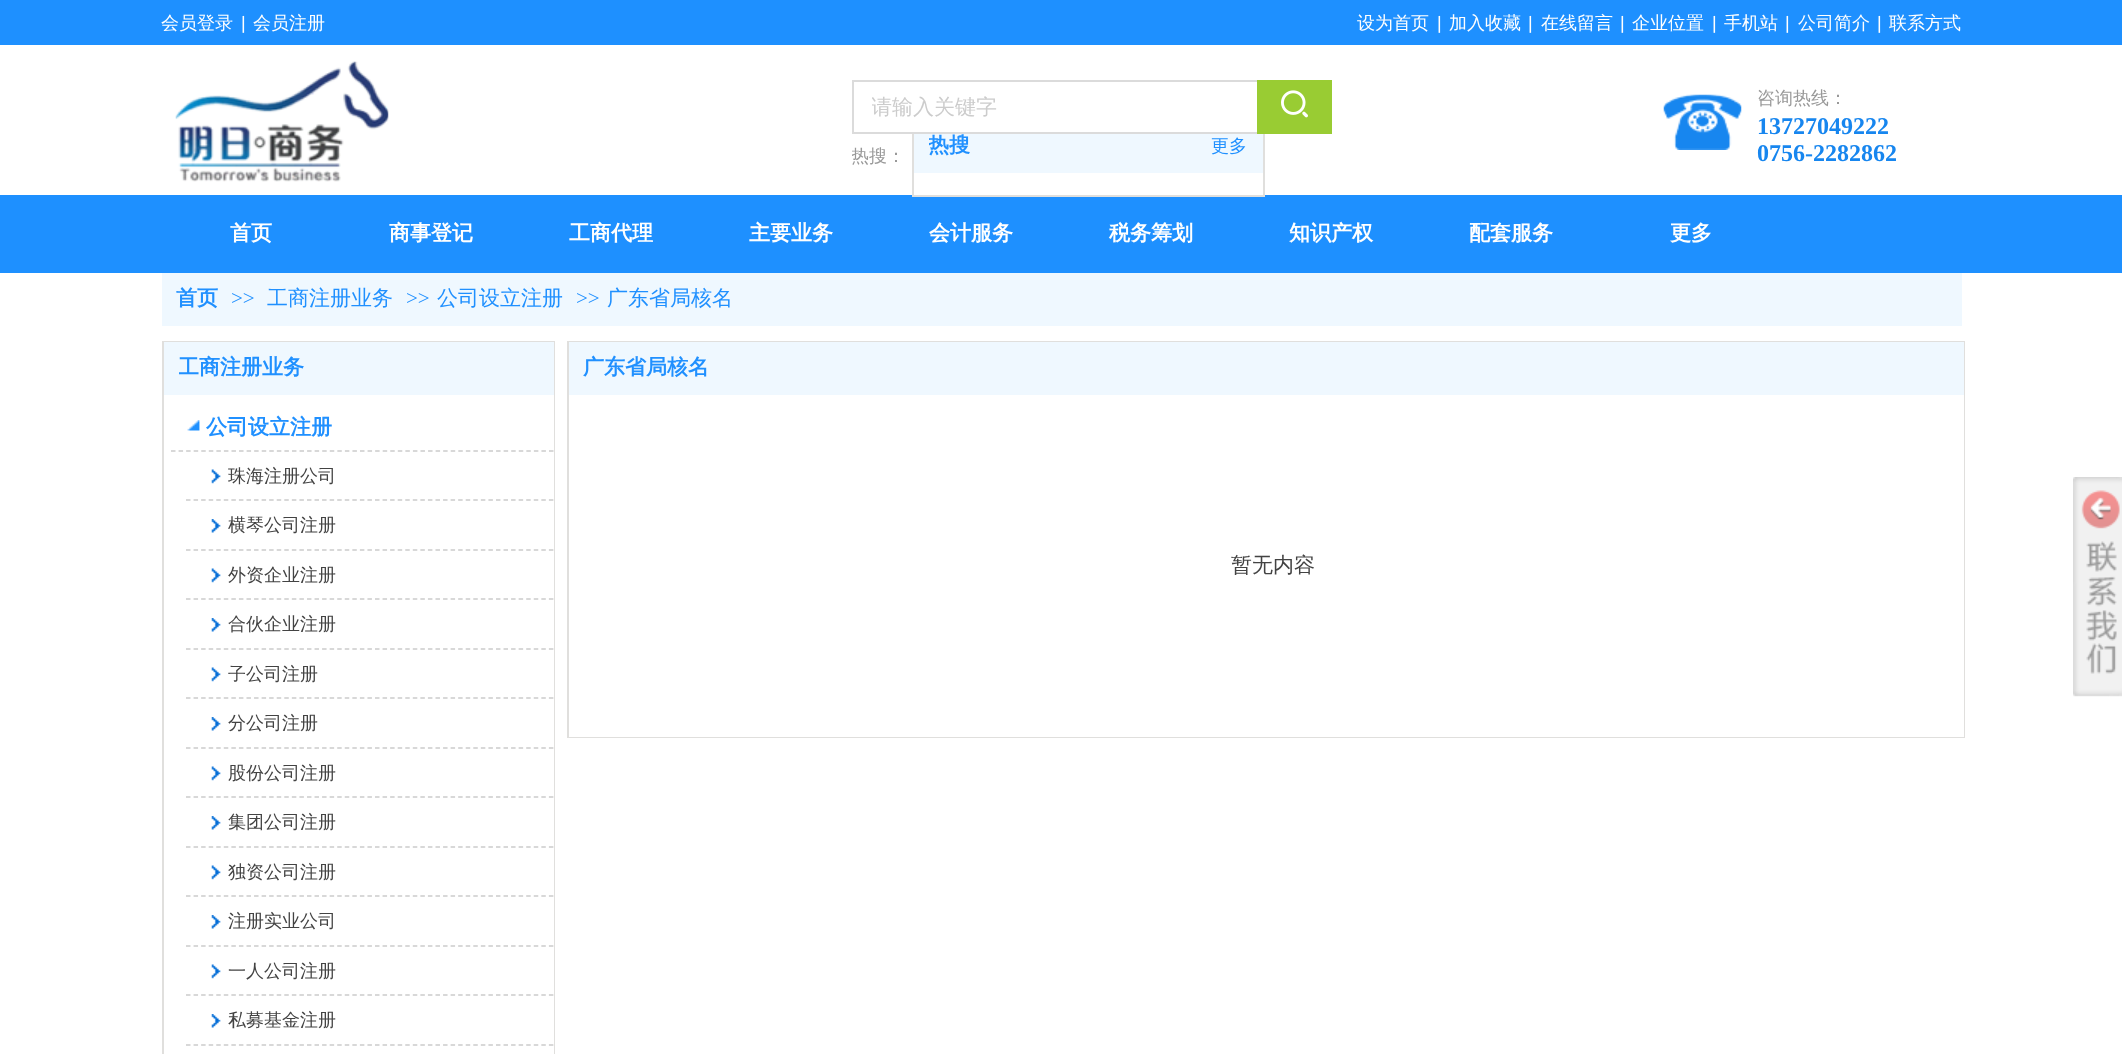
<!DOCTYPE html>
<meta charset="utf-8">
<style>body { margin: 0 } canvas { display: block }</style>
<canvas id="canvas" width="2122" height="1054"></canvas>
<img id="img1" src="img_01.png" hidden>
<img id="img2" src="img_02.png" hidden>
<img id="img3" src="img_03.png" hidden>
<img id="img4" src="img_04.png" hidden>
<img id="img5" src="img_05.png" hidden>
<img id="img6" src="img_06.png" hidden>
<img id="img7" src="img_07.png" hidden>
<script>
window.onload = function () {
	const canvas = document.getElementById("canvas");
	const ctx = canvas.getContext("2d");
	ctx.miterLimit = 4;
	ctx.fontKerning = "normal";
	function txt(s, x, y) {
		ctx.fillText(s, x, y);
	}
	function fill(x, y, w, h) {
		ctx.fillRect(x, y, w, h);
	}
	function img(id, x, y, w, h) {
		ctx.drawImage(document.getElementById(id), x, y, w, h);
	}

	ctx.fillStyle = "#FFFFFF";
	fill(0, 0, 2122, 1054);
	ctx.fillStyle = "#1E90FF";
	fill(0, 0, 2122, 45);
	fill(0, 195, 2122, 78);
	img("img1", 175, 61, 214, 121);
	ctx.strokeStyle = "#E0DFDD";
	ctx.lineWidth = 2;
	ctx.strokeRect(913, 120, 351, 76);
	ctx.fillStyle = "#FFFFFF";
	fill(912, 119, 345, 13);
	ctx.strokeStyle = "#DBDBDB";
	ctx.strokeRect(853, 81, 478, 52);
	ctx.fillStyle = "#99CC33";
	fill(1257, 80, 75, 54);
	img("img2", 1281, 90, 27, 28);
	img("img3", 1663, 94, 79, 56);
	ctx.fillStyle = "#EFF8FF";
	fill(914, 134, 349, 39);
	fill(162, 273, 1800, 53);
	ctx.strokeStyle = "#E0DFDD";
	ctx.strokeRect(163, 342, 391, 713);
	fill(164, 342, 390, 53);
	ctx.fillStyle = "#FFFFFF";
	fill(553, 395, 1, 659);
	ctx.save();
	ctx.beginPath();
	ctx.rect(171, 402, 383, 50);
	ctx.clip();
	ctx.beginPath();
	ctx.moveTo(171, 451);
	ctx.lineTo(561, 451);
	ctx.strokeStyle = "#CCCCCC";
	ctx.lineWidth = 1.5;
	ctx.setLineDash([4.5, 3.06]);
	ctx.stroke();
	ctx.restore();
	img("img4", 187, 420, 13, 11);
	ctx.save();
	ctx.beginPath();
	ctx.rect(171, 452, 383, 49);
	ctx.clip();
	ctx.beginPath();
	ctx.moveTo(186, 500);
	ctx.lineTo(561, 500);
	ctx.strokeStyle = "#CCCCCC";
	ctx.lineWidth = 1.5;
	ctx.setLineDash([4.5, 3.06]);
	ctx.stroke();
	ctx.restore();
	img("img5", 211, 469, 10, 15);
	ctx.save();
	ctx.beginPath();
	ctx.rect(171, 501, 383, 50);
	ctx.clip();
	ctx.beginPath();
	ctx.moveTo(186, 550);
	ctx.lineTo(561, 550);
	ctx.strokeStyle = "#CCCCCC";
	ctx.lineWidth = 1.5;
	ctx.setLineDash([4.5, 3.06]);
	ctx.stroke();
	ctx.restore();
	img("img6", 211, 519, 10, 14);
	ctx.save();
	ctx.beginPath();
	ctx.rect(171, 551, 383, 49);
	ctx.clip();
	ctx.beginPath();
	ctx.moveTo(186, 599);
	ctx.lineTo(561, 599);
	ctx.strokeStyle = "#CCCCCC";
	ctx.lineWidth = 1.5;
	ctx.setLineDash([4.5, 3.06]);
	ctx.stroke();
	ctx.restore();
	img("img5", 211, 568, 10, 15);
	ctx.save();
	ctx.beginPath();
	ctx.rect(171, 600, 383, 50);
	ctx.clip();
	ctx.beginPath();
	ctx.moveTo(186, 649);
	ctx.lineTo(561, 649);
	ctx.strokeStyle = "#CCCCCC";
	ctx.lineWidth = 1.5;
	ctx.setLineDash([4.5, 3.06]);
	ctx.stroke();
	ctx.restore();
	img("img6", 211, 618, 10, 14);
	ctx.save();
	ctx.beginPath();
	ctx.rect(171, 650, 383, 49);
	ctx.clip();
	ctx.beginPath();
	ctx.moveTo(186, 698);
	ctx.lineTo(561, 698);
	ctx.strokeStyle = "#CCCCCC";
	ctx.lineWidth = 1.5;
	ctx.setLineDash([4.5, 3.06]);
	ctx.stroke();
	ctx.restore();
	img("img5", 211, 667, 10, 15);
	ctx.save();
	ctx.beginPath();
	ctx.rect(171, 699, 383, 50);
	ctx.clip();
	ctx.beginPath();
	ctx.moveTo(186, 748);
	ctx.lineTo(561, 748);
	ctx.strokeStyle = "#CCCCCC";
	ctx.lineWidth = 1.5;
	ctx.setLineDash([4.5, 3.06]);
	ctx.stroke();
	ctx.restore();
	img("img6", 211, 717, 10, 14);
	ctx.save();
	ctx.beginPath();
	ctx.rect(171, 749, 383, 49);
	ctx.clip();
	ctx.beginPath();
	ctx.moveTo(186, 797);
	ctx.lineTo(561, 797);
	ctx.strokeStyle = "#CCCCCC";
	ctx.lineWidth = 1.5;
	ctx.setLineDash([4.5, 3.06]);
	ctx.stroke();
	ctx.restore();
	img("img5", 211, 766, 10, 15);
	ctx.save();
	ctx.beginPath();
	ctx.rect(171, 798, 383, 50);
	ctx.clip();
	ctx.beginPath();
	ctx.moveTo(186, 847);
	ctx.lineTo(561, 847);
	ctx.strokeStyle = "#CCCCCC";
	ctx.lineWidth = 1.5;
	ctx.setLineDash([4.5, 3.06]);
	ctx.stroke();
	ctx.restore();
	img("img6", 211, 816, 10, 14);
	ctx.save();
	ctx.beginPath();
	ctx.rect(171, 848, 383, 49);
	ctx.clip();
	ctx.beginPath();
	ctx.moveTo(186, 896);
	ctx.lineTo(561, 896);
	ctx.strokeStyle = "#CCCCCC";
	ctx.lineWidth = 1.5;
	ctx.setLineDash([4.5, 3.06]);
	ctx.stroke();
	ctx.restore();
	img("img5", 211, 865, 10, 15);
	ctx.save();
	ctx.beginPath();
	ctx.rect(171, 897, 383, 50);
	ctx.clip();
	ctx.beginPath();
	ctx.moveTo(186, 946);
	ctx.lineTo(561, 946);
	ctx.strokeStyle = "#CCCCCC";
	ctx.lineWidth = 1.5;
	ctx.setLineDash([4.5, 3.06]);
	ctx.stroke();
	ctx.restore();
	img("img6", 211, 915, 10, 14);
	ctx.save();
	ctx.beginPath();
	ctx.rect(171, 947, 383, 49);
	ctx.clip();
	ctx.beginPath();
	ctx.moveTo(186, 995);
	ctx.lineTo(561, 995);
	ctx.strokeStyle = "#CCCCCC";
	ctx.lineWidth = 1.5;
	ctx.setLineDash([4.5, 3.06]);
	ctx.stroke();
	ctx.restore();
	img("img5", 211, 964, 10, 15);
	ctx.save();
	ctx.beginPath();
	ctx.rect(171, 996, 383, 50);
	ctx.clip();
	ctx.beginPath();
	ctx.moveTo(186, 1045);
	ctx.lineTo(561, 1045);
	ctx.strokeStyle = "#CCCCCC";
	ctx.lineWidth = 1.5;
	ctx.setLineDash([4.5, 3.06]);
	ctx.stroke();
	ctx.restore();
	img("img6", 211, 1014, 10, 14);
	ctx.strokeRect(568, 342, 1396, 395);
	ctx.fillStyle = "#EFF8FF";
	fill(569, 342, 1395, 53);
	ctx.fillStyle = "#FFFFFF";
	fill(569, 395, 1395, 342);
	img("img7", 2073, 477, 49, 220);
	ctx.font = "500 18px WenQuanYi Zen Hei";
	txt("会员登录", 161, 29);
	ctx.font = "18px Liberation Sans";
	txt("|", 241, 29);
	ctx.font = "500 18px WenQuanYi Zen Hei";
	txt("会员注册", 253, 29);
	txt("设为首页", 1357, 29);
	ctx.font = "18px Liberation Sans";
	txt("|", 1437, 29);
	ctx.font = "500 18px WenQuanYi Zen Hei";
	txt("加入收藏", 1449, 29);
	ctx.font = "18px Liberation Sans";
	txt("|", 1528, 29);
	ctx.font = "500 18px WenQuanYi Zen Hei";
	txt("在线留言", 1541, 29);
	ctx.font = "18px Liberation Sans";
	txt("|", 1620, 29);
	ctx.font = "500 18px WenQuanYi Zen Hei";
	txt("企业位置", 1632, 29);
	ctx.font = "18px Liberation Sans";
	txt("|", 1712, 29);
	ctx.font = "500 18px WenQuanYi Zen Hei";
	txt("手机站", 1724, 29);
	ctx.font = "18px Liberation Sans";
	txt("|", 1785, 29);
	ctx.font = "500 18px WenQuanYi Zen Hei";
	txt("公司简介", 1798, 29);
	ctx.font = "18px Liberation Sans";
	txt("|", 1877, 29);
	ctx.font = "500 18px WenQuanYi Zen Hei";
	txt("联系方式", 1889, 29);
	ctx.font = "bold 21px WenQuanYi Zen Hei";
	txt("首页", 230, 240);
	txt("商事登记", 389, 240);
	txt("工商代理", 569, 240);
	txt("主要业务", 749, 240);
	txt("会计服务", 929, 240);
	txt("税务筹划", 1109, 240);
	txt("知识产权", 1289, 240);
	txt("配套服务", 1469, 240);
	txt("更多", 1670, 240);
	ctx.save();
	ctx.beginPath();
	ctx.rect(872, 95, 372, 27);
	ctx.clip();
	ctx.font = "500 21px WenQuanYi Zen Hei";
	ctx.fillStyle = "#CCCCCC";
	txt("请输入关键字", 871, 114);
	ctx.restore();
	ctx.font = "500 18px WenQuanYi Zen Hei";
	ctx.fillStyle = "#999999";
	txt("咨询热线：", 1757, 104);
	ctx.save();
	ctx.beginPath();
	ctx.rect(852, 144, 89, 45);
	ctx.clip();
	txt("热搜：", 851, 162);
	ctx.restore();
	ctx.save();
	ctx.beginPath();
	ctx.rect(929, 132, 42, 27);
	ctx.clip();
	ctx.font = "bold 21px WenQuanYi Zen Hei";
	ctx.fillStyle = "#2090FF";
	txt("热搜", 928, 152);
	ctx.restore();
	ctx.fillStyle = "#2090FF";
	txt("更多", 1211, 152);
	ctx.font = "bold 24px Liberation Serif";
	ctx.fillStyle = "#1786EF";
	txt("13727049222", 1757, 134);
	txt("0756-2282862", 1757, 161);
	ctx.font = "bold 21px WenQuanYi Zen Hei";
	ctx.fillStyle = "#2090FF";
	txt("首页", 176, 305);
	ctx.font = "21px Liberation Serif";
	txt(">>", 231, 305);
	ctx.font = "500 21px WenQuanYi Zen Hei";
	txt("工商注册业务", 267, 305);
	ctx.font = "21px Liberation Serif";
	txt(">>", 406, 305);
	ctx.font = "500 21px WenQuanYi Zen Hei";
	txt("公司设立注册", 437, 305);
	ctx.font = "21px Liberation Serif";
	txt(">>", 576, 305);
	ctx.font = "500 21px WenQuanYi Zen Hei";
	txt("广东省局核名", 607, 305);
	ctx.save();
	ctx.beginPath();
	ctx.rect(179, 354, 126, 27);
	ctx.clip();
	ctx.font = "bold 21px WenQuanYi Zen Hei";
	txt("工商注册业务", 178, 374);
	ctx.restore();
	ctx.font = "bold 21px WenQuanYi Zen Hei";
	txt("公司设立注册", 206, 434);
	ctx.font = "500 18px WenQuanYi Zen Hei";
	ctx.fillStyle = "#434343";
	txt("珠海注册公司", 228, 482);
	txt("横琴公司注册", 228, 531);
	txt("外资企业注册", 228, 581);
	txt("合伙企业注册", 228, 630);
	txt("子公司注册", 228, 680);
	txt("分公司注册", 228, 729);
	txt("股份公司注册", 228, 779);
	txt("集团公司注册", 228, 828);
	txt("独资公司注册", 228, 878);
	txt("注册实业公司", 228, 927);
	txt("一人公司注册", 228, 977);
	txt("私募基金注册", 228, 1026);
	ctx.font = "bold 21px WenQuanYi Zen Hei";
	ctx.fillStyle = "#2090FF";
	txt("广东省局核名", 583, 374);
	ctx.font = "500 21px WenQuanYi Zen Hei";
	ctx.fillStyle = "#434343";
	txt("暂无内容", 1231, 572);
};
</script>
